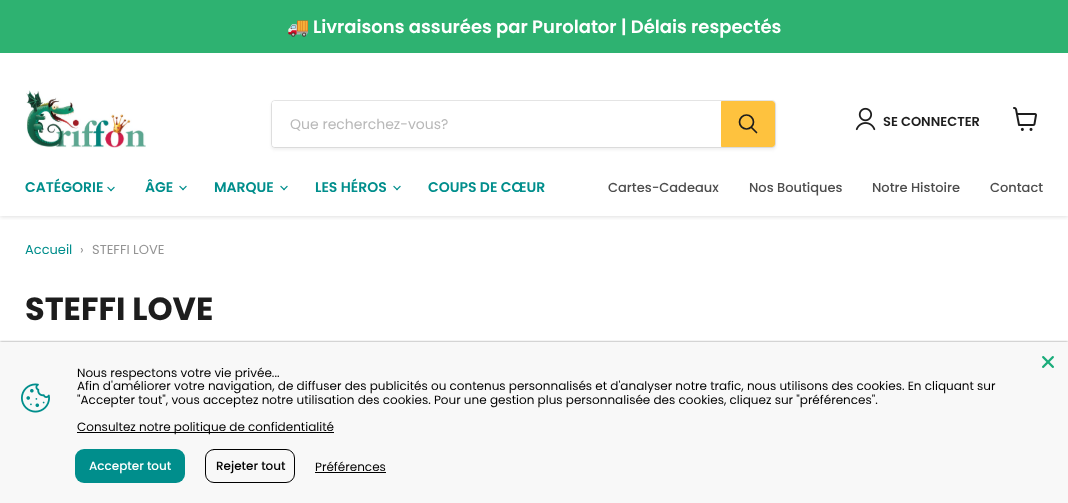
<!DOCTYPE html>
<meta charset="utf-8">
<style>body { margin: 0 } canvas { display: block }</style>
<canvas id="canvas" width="1068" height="503"></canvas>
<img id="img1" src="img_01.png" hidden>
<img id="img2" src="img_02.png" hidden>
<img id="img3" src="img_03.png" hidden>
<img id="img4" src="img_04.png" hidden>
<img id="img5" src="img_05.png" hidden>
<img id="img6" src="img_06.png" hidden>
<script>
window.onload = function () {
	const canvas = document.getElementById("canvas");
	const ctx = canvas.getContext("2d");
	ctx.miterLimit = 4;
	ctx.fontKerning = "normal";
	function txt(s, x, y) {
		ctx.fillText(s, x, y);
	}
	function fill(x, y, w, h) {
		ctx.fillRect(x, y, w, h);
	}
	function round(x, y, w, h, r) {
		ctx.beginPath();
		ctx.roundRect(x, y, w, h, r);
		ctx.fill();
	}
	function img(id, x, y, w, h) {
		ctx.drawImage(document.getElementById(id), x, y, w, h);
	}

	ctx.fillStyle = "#FFFFFF";
	fill(0, 0, 1068, 503);
	ctx.fillStyle = "#2EB271";
	fill(0, 0, 1068, 53);
	ctx.save();
	ctx.beginPath();
	ctx.rect(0, 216, 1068, 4);
	ctx.clip();
	ctx.fillStyle = "rgba(128, 128, 128, 0.25)";
	ctx.filter = "blur(2px)";
	ctx.beginPath();
	ctx.rect(0, 70, 1068, 147);
	ctx.fill();
	ctx.filter = "none";
	ctx.restore();
	ctx.fillStyle = "#FFFFFF";
	fill(0, 67, 1068, 2);
	img("img1", 26, 90, 120, 58);
	ctx.fillStyle = "rgba(128, 128, 128, 0.11)";
	ctx.filter = "blur(1.5px)";
	ctx.beginPath();
	ctx.roundRect(271, 102, 505, 48, 4);
	ctx.fill();
	ctx.filter = "none";
	ctx.beginPath();
	ctx.roundRect(271.5, 100.5, 504, 47, 3.5);
	ctx.strokeStyle = "rgba(128, 128, 128, 0.2)";
	ctx.stroke();
	ctx.fillStyle = "#FFFFFF";
	ctx.beginPath();
	ctx.roundRect(272, 101, 449, 46, [3, 0, 0, 3]);
	ctx.fill();
	ctx.fillStyle = "#FEC23E";
	ctx.beginPath();
	ctx.roundRect(721.5, 101.5, 53, 45, [0, 2.5, 2.5, 0]);
	ctx.fill();
	ctx.strokeStyle = "#FEC23E";
	ctx.stroke();
	ctx.beginPath();
	ctx.moveTo(756.5, 132.5);
	ctx.lineTo(751.5, 127.5);
	ctx.strokeStyle = "#1D1D1D";
	ctx.lineWidth = 1.7;
	ctx.lineCap = "round";
	ctx.stroke();
	ctx.beginPath();
	ctx.arc(746.5, 122, 7, 0, Math.PI * 2);
	ctx.stroke();
	img("img2", 855, 107, 21, 24);
	img("img3", 1013, 107, 24, 24);
	img("img4", 107, 186, 8, 6);
	img("img4", 179, 185, 8, 6);
	img("img4", 280, 185, 8, 6);
	img("img4", 393, 185, 8, 6);
	ctx.fillStyle = "rgba(0, 0, 0, 0.5)";
	ctx.filter = "blur(1px)";
	ctx.beginPath();
	ctx.rect(0, 342, 1068, 161);
	ctx.fill();
	ctx.filter = "none";
	ctx.fillStyle = "#F8F8F8";
	fill(0, 342, 1068, 161);
	img("img5", 1042, 356, 12, 12);
	img("img6", 21, 383, 29, 30);
	ctx.fillStyle = "#000000";
	fill(77, 432, 257, 1);
	ctx.fillStyle = "#008E8C";
	round(75, 449, 110, 34, 9);
	ctx.beginPath();
	ctx.roundRect(205.5, 449.5, 89, 33, 8.5);
	ctx.strokeStyle = "#000000";
	ctx.lineWidth = 1;
	ctx.stroke();
	ctx.fillStyle = "#000000";
	fill(315, 472, 71, 1);
	ctx.font = "bold 18px Noto Color Emoji";
	ctx.fillStyle = "#FFFFFF";
	txt("🚚", 287, 33);
	ctx.font = "600 18px Poppins";
	txt("Livraisons assurées par Purolator | Délais respectés", 313, 33);
	ctx.font = "14px Poppins";
	ctx.fillStyle = "#B8B8B8";
	txt("Que recherchez-vous?", 290, 129);
	ctx.font = "600 13px Poppins";
	ctx.fillStyle = "#1D1D1D";
	txt("SE CONNECTER", 883, 126);
	ctx.font = "600 14px Poppins";
	ctx.fillStyle = "#008E8C";
	txt("CATÉGORIE", 25, 192);
	txt("ÂGE", 145, 192);
	txt("MARQUE", 214, 192);
	txt("LES HÉROS", 315, 192);
	txt("COUPS DE CŒUR", 428, 192);
	ctx.font = "500 13px Poppins";
	ctx.fillStyle = "#4D4D4D";
	txt("Cartes-Cadeaux", 608, 192);
	txt("Nos Boutiques", 749, 192);
	txt("Notre Histoire", 872, 192);
	txt("Contact", 990, 192);
	ctx.font = "13px Poppins";
	ctx.fillStyle = "#008E8C";
	txt("Accueil", 25, 254);
	ctx.fillStyle = "#949494";
	txt("›", 80, 254);
	txt("STEFFI LOVE", 92, 254);
	ctx.font = "bold 32px Poppins";
	ctx.fillStyle = "#1D1D1D";
	txt("STEFFI LOVE", 25, 320);
	ctx.font = "12px Poppins";
	ctx.fillStyle = "#000000";
	txt("Nous respectons votre vie privée...", 77, 377);
	txt("Afin d'améliorer votre navigation, de diffuser des publicités ou contenus personnalisés et d'analyser notre trafic, nous utilisons des cookies. En cliquant sur", 77, 390);
	txt("\"Accepter tout\", vous acceptez notre utilisation des cookies. Pour une gestion plus personnalisée des cookies, cliquez sur \"préférences\".", 77, 404);
	txt("Consultez notre politique de confidentialité", 77, 431);
	ctx.font = "500 12px Poppins";
	ctx.fillStyle = "#FFFFFF";
	txt("Accepter tout", 89, 470);
	ctx.fillStyle = "#000000";
	txt("Rejeter tout", 216, 470);
	ctx.font = "12px Poppins";
	txt("Préférences", 315, 471);
};
</script>
